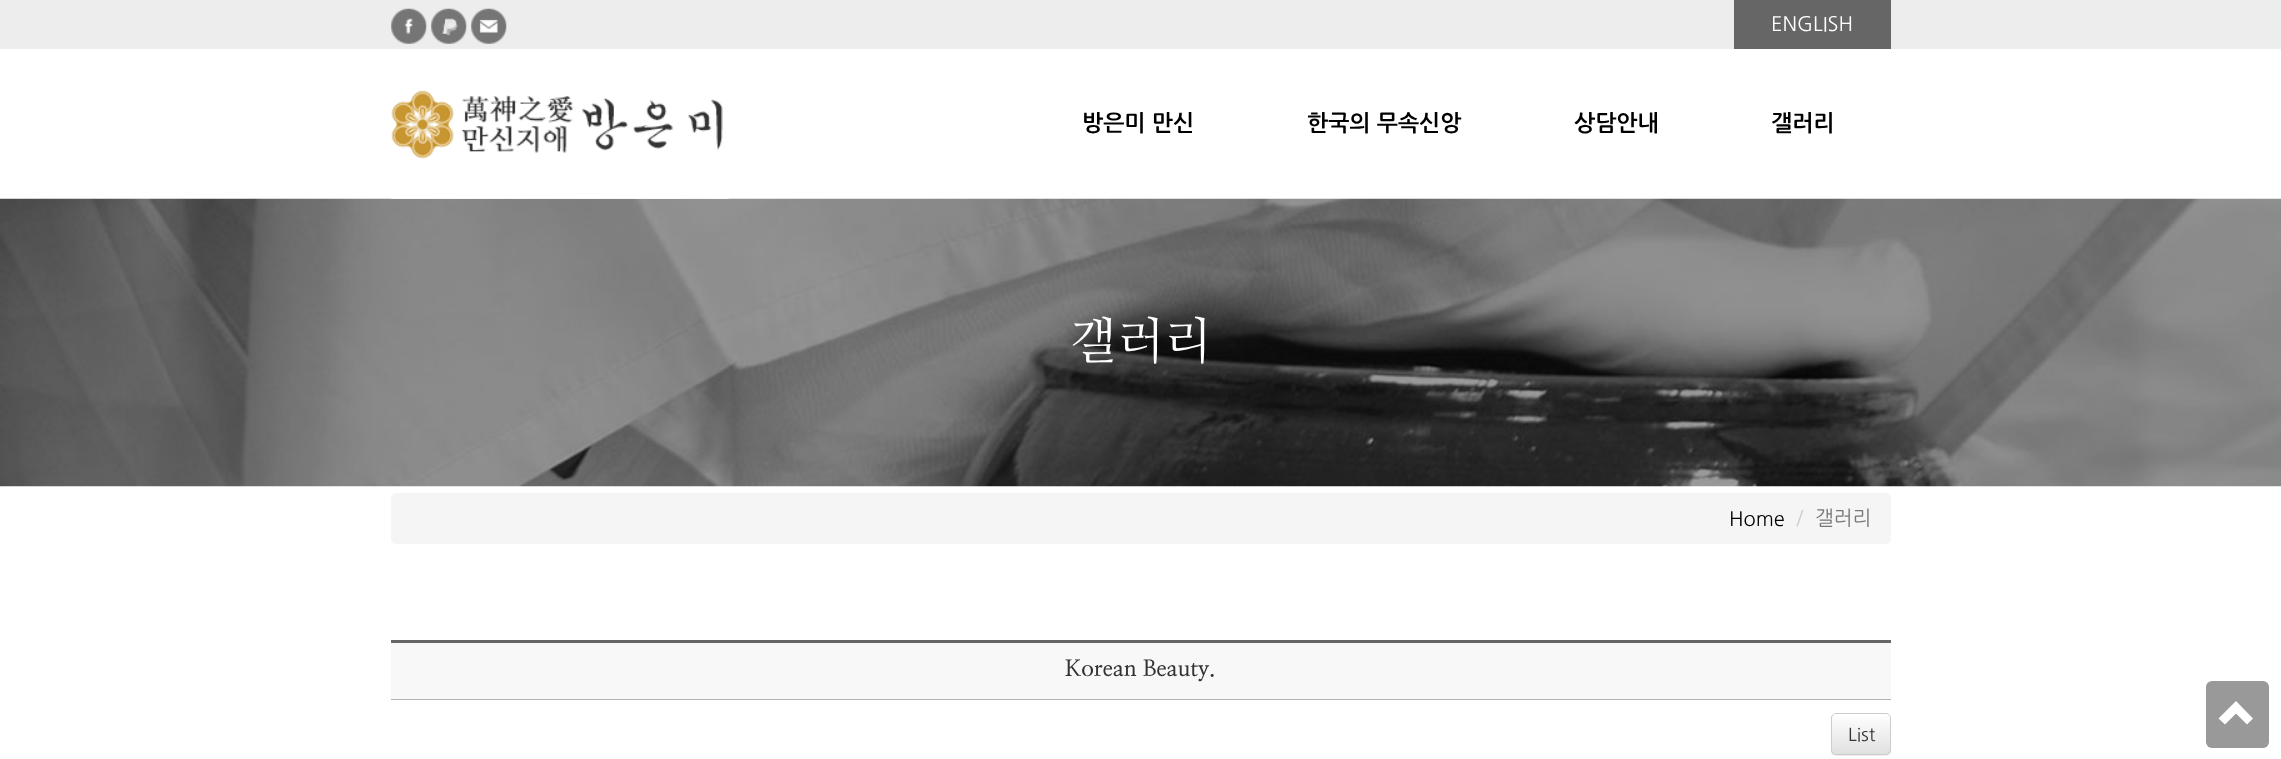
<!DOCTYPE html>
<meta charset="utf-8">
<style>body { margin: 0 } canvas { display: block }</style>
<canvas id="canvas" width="2281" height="759"></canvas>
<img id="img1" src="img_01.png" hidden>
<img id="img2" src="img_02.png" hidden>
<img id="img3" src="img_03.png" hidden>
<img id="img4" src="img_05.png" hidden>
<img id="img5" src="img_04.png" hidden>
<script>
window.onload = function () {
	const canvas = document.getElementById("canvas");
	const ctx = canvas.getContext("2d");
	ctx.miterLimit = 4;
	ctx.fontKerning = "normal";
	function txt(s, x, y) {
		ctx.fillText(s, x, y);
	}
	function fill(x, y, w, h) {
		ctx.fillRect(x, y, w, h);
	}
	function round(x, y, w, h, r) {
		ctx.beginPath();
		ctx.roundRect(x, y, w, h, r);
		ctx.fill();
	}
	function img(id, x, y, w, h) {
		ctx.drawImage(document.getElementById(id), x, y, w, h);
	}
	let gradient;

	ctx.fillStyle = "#FFFFFF";
	fill(0, 0, 2281, 759);
	ctx.fillStyle = "#EDEDED";
	fill(0, 0, 2281, 49);
	img("img1", 391, 8, 36, 36);
	img("img2", 431, 8, 36, 36);
	img("img3", 471, 8, 36, 36);
	ctx.fillStyle = "#666666";
	fill(1734, 0, 157, 49);
	img("img4", 0, 198, 2281, 289);
	img("img5", 391, 90, 338, 109);
	ctx.fillStyle = "#F5F5F5";
	round(391, 493, 1500, 51, 5);
	ctx.fillStyle = "#F8F8F8";
	fill(391, 643, 1500, 56);
	ctx.fillStyle = "#666666";
	fill(391, 640, 1500, 3);
	ctx.fillStyle = "#B3B3B3";
	fill(391, 699, 1500, 1);
	ctx.fillStyle = "rgba(0, 0, 0, 0.07)";
	ctx.filter = "blur(0.5px)";
	ctx.beginPath();
	ctx.roundRect(1831, 714, 60, 42, 5);
	ctx.fill();
	ctx.filter = "none";
	ctx.save();
	ctx.beginPath();
	ctx.roundRect(1831, 713, 60, 42, 5);
	ctx.clip();
	gradient = ctx.createLinearGradient(1861, 714, 1861, 754);
	gradient.addColorStop(0, "#FFFFFF");
	gradient.addColorStop(1, "#E0E0E0");
	ctx.fillStyle = gradient;
	fill(1831, 714, 60, 40);
	ctx.restore();
	ctx.beginPath();
	ctx.roundRect(1831.5, 713.5, 59, 41, 4.5);
	ctx.strokeStyle = "#CCCCCC";
	ctx.stroke();
	ctx.fillStyle = "#999999";
	round(2206, 681, 63, 67, 6);
	ctx.fillStyle = "#FFFFFF";
	ctx.beginPath();
	ctx.moveTo(2253, 718.5);
	ctx.lineTo(2247, 724.5);
	ctx.lineTo(2236, 713.5);
	ctx.lineTo(2225, 724.5);
	ctx.lineTo(2218.5, 718.5);
	ctx.lineTo(2236, 701);
	ctx.closePath();
	ctx.fill();
	ctx.font = "20px NanumGothic";
	txt("ENGLISH", 1771, 31);
	ctx.font = "bold 22.5px NanumGothic";
	ctx.fillStyle = "#000000";
	txt("방은미 만신", 1082, 131);
	txt("한국의 무속신앙", 1307, 131);
	txt("상담안내", 1574, 131);
	txt("갤러리", 1771, 131);
	ctx.font = "50px NanumMyeongjo";
	ctx.fillStyle = "#FFFFFF";
	txt("갤러리", 1069, 358);
	ctx.font = "20px NanumGothic";
	ctx.fillStyle = "#000000";
	txt("Home", 1729, 526);
	ctx.fillStyle = "#CCCCCC";
	txt("/", 1796, 525);
	ctx.fillStyle = "#777777";
	txt("갤러리", 1815, 525);
	ctx.font = "bold 22.5px NanumMyeongjo";
	ctx.fillStyle = "#333333";
	txt("Korean Beauty.", 1065, 676);
	ctx.font = "18px NanumGothic";
	txt("List", 1848, 741);
};
</script>
